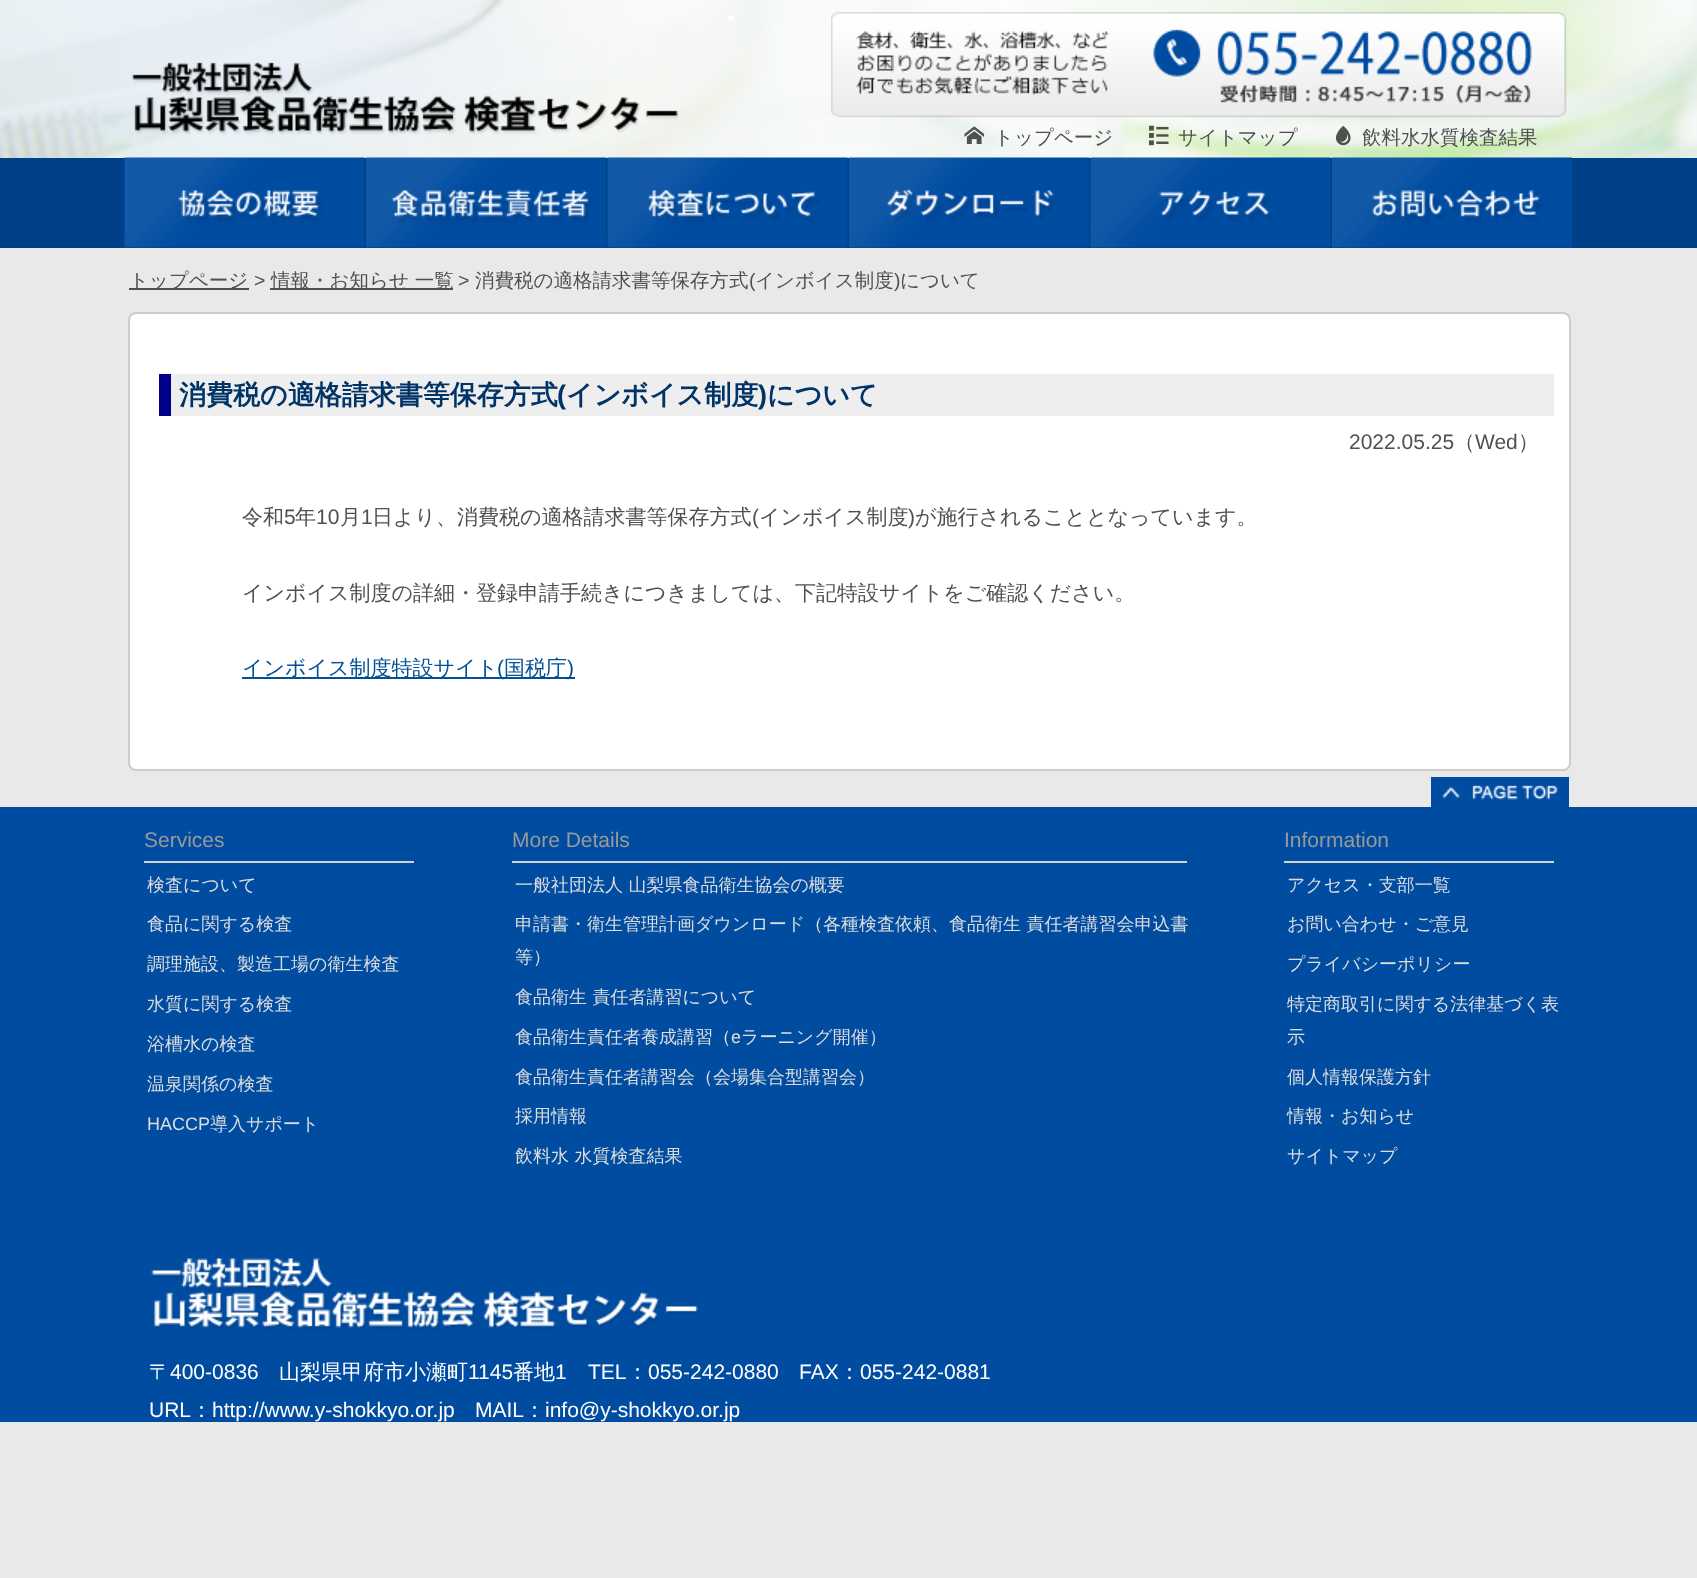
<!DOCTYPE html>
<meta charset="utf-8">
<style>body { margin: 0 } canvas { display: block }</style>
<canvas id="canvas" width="1697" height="1578"></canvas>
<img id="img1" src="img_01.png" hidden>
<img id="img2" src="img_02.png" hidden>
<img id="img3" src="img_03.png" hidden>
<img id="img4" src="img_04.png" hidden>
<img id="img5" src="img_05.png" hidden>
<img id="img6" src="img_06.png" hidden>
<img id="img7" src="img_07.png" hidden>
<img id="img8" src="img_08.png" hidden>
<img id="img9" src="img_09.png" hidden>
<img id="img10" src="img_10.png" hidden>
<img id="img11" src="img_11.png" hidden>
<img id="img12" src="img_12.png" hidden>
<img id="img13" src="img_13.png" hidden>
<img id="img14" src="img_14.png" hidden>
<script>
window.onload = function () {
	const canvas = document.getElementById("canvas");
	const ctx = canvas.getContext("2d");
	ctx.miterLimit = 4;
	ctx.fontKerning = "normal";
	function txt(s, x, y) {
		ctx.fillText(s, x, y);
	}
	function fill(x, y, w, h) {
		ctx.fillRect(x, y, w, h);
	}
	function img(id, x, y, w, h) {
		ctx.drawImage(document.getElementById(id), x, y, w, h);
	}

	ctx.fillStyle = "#E9E9E9";
	fill(0, 0, 1697, 1578);
	img("img1", 0, 0, 1697, 158);
	img("img2", 131, 62, 548, 73);
	ctx.fillStyle = "#FFFFFF";
	ctx.beginPath();
	ctx.arc(731, 18, 3, 0, Math.PI * 2);
	ctx.fill();
	img("img3", 831, 12, 736, 106);
	img("img4", 964, 126, 20, 18);
	img("img5", 1149, 125, 20, 21);
	img("img6", 1336, 125, 15, 21);
	ctx.fillStyle = "#004088";
	fill(0, 158, 1697, 90);
	img("img7", 124, 157, 241, 91);
	img("img8", 366, 157, 240, 91);
	img("img9", 607, 157, 241, 91);
	img("img10", 849, 157, 240, 91);
	img("img11", 1090, 157, 241, 91);
	img("img12", 1332, 157, 240, 91);
	ctx.fillStyle = "#505050";
	fill(129, 288, 120, 2);
	fill(270, 288, 183, 2);
	ctx.fillStyle = "#FFFFFF";
	ctx.beginPath();
	ctx.roundRect(129, 313, 1441, 457, 7);
	ctx.fill();
	ctx.strokeStyle = "#CCCCCC";
	ctx.lineWidth = 2;
	ctx.stroke();
	ctx.fillStyle = "#EEEEEE";
	fill(171, 374, 1383, 42);
	ctx.fillStyle = "#00008B";
	fill(159, 374, 12, 42);
	ctx.fillStyle = "#005096";
	fill(242, 677, 333, 2);
	img("img13", 1431, 777, 138, 30);
	ctx.fillStyle = "#004CA1";
	fill(0, 807, 1697, 615);
	ctx.fillStyle = "#D3D3D3";
	fill(144, 861, 270, 2);
	fill(512, 861, 675, 2);
	fill(1284, 861, 270, 2);
	img("img14", 151, 1258, 548, 72);
	ctx.font = "500 19.5px WenQuanYi Zen Hei";
	ctx.fillStyle = "#505050";
	txt("トップページ", 994, 144);
	txt("サイトマップ", 1178, 144);
	txt("飲料水水質検査結果", 1362, 144);
	txt("トップページ", 129, 287);
	ctx.font = "19.5px Liberation Sans";
	txt(">", 254, 287);
	ctx.font = "500 19.5px WenQuanYi Zen Hei";
	txt("情報・お知らせ 一覧", 271, 287);
	ctx.font = "19.5px Liberation Sans";
	txt(">", 458, 287);
	ctx.font = "500 19.5px WenQuanYi Zen Hei";
	txt("消費税の適格請求書等保存方式", 475, 287);
	ctx.font = "19.5px Liberation Sans";
	txt("(", 749, 287);
	ctx.font = "500 19.5px WenQuanYi Zen Hei";
	txt("インボイス制度", 755, 287);
	ctx.font = "19.5px Liberation Sans";
	txt(")", 894, 287);
	ctx.font = "500 19.5px WenQuanYi Zen Hei";
	txt("について", 900, 287);
	ctx.font = "bold 27px WenQuanYi Zen Hei";
	ctx.fillStyle = "#003366";
	txt("消費税の適格請求書等保存方式", 179, 404);
	ctx.font = "bold 27px Liberation Sans";
	txt("(", 557, 404);
	ctx.font = "bold 27px WenQuanYi Zen Hei";
	txt("インボイス制度", 566, 404);
	ctx.font = "bold 27px Liberation Sans";
	txt(")", 758, 404);
	ctx.font = "bold 27px WenQuanYi Zen Hei";
	txt("について", 767, 404);
	ctx.font = "21px Liberation Sans";
	ctx.fillStyle = "#505050";
	txt("2022.05.25", 1349, 449);
	ctx.font = "500 21px WenQuanYi Zen Hei";
	txt("（", 1454, 449);
	ctx.font = "21px Liberation Sans";
	txt("Wed", 1475, 449);
	ctx.font = "500 21px WenQuanYi Zen Hei";
	txt("）", 1518, 449);
	txt("令和", 242, 524);
	ctx.font = "21px Liberation Sans";
	txt("5", 284, 524);
	ctx.font = "500 21px WenQuanYi Zen Hei";
	txt("年", 295, 524);
	ctx.font = "21px Liberation Sans";
	txt("10", 316, 524);
	ctx.font = "500 21px WenQuanYi Zen Hei";
	txt("月", 340, 524);
	ctx.font = "21px Liberation Sans";
	txt("1", 361, 524);
	ctx.font = "500 21px WenQuanYi Zen Hei";
	txt("日より、消費税の適格請求書等保存方式", 372, 524);
	ctx.font = "21px Liberation Sans";
	txt("(", 752, 524);
	ctx.font = "500 21px WenQuanYi Zen Hei";
	txt("インボイス制度", 759, 524);
	ctx.font = "21px Liberation Sans";
	txt(")", 908, 524);
	ctx.font = "500 21px WenQuanYi Zen Hei";
	txt("が施行されることとなっています。", 915, 524);
	txt("インボイス制度の詳細・登録申請手続きにつきましては、下記特設サイトをご確認ください。", 242, 600);
	ctx.fillStyle = "#005096";
	txt("インボイス制度特設サイト", 242, 675);
	ctx.font = "21px Liberation Sans";
	txt("(", 497, 675);
	ctx.font = "500 21px WenQuanYi Zen Hei";
	txt("国税庁", 504, 675);
	ctx.font = "21px Liberation Sans";
	txt(")", 567, 675);
	ctx.fillStyle = "#999999";
	txt("Services", 144, 847);
	ctx.font = "500 18px WenQuanYi Zen Hei";
	ctx.fillStyle = "#DDDDDD";
	txt("検査について", 147, 891);
	txt("食品に関する検査", 147, 930);
	txt("調理施設、製造工場の衛生検査", 147, 970);
	txt("水質に関する検査", 147, 1010);
	txt("浴槽水の検査", 147, 1050);
	txt("温泉関係の検査", 147, 1090);
	ctx.font = "18px Liberation Sans";
	txt("HACCP", 147, 1130);
	ctx.font = "500 18px WenQuanYi Zen Hei";
	txt("導入サポート", 210, 1130);
	ctx.font = "21px Liberation Sans";
	ctx.fillStyle = "#999999";
	txt("More Details", 512, 847);
	ctx.font = "500 18px WenQuanYi Zen Hei";
	ctx.fillStyle = "#DDDDDD";
	txt("一般社団法人 山梨県食品衛生協会の概要", 515, 891);
	txt("申請書・衛生管理計画ダウンロード（各種検査依頼、食品衛生 責任者講習会申込書", 515, 930);
	txt("等）", 515, 963);
	txt("食品衛生 責任者講習について", 515, 1003);
	txt("食品衛生責任者養成講習（", 515, 1043);
	ctx.font = "18px Liberation Sans";
	txt("e", 731, 1043);
	ctx.font = "500 18px WenQuanYi Zen Hei";
	txt("ラーニング開催）", 741, 1043);
	txt("食品衛生責任者講習会（会場集合型講習会）", 515, 1083);
	txt("採用情報", 515, 1122);
	txt("飲料水 水質検査結果", 515, 1162);
	ctx.font = "21px Liberation Sans";
	ctx.fillStyle = "#999999";
	txt("Information", 1284, 847);
	ctx.font = "500 18px WenQuanYi Zen Hei";
	ctx.fillStyle = "#DDDDDD";
	txt("アクセス・支部一覧", 1287, 891);
	txt("お問い合わせ・ご意見", 1287, 930);
	txt("プライバシーポリシー", 1287, 970);
	txt("特定商取引に関する法律基づく表", 1287, 1010);
	txt("示", 1287, 1043);
	txt("個人情報保護方針", 1287, 1083);
	txt("情報・お知らせ", 1287, 1122);
	txt("サイトマップ", 1287, 1162);
	ctx.font = "500 21px WenQuanYi Zen Hei";
	ctx.fillStyle = "#FFFFFF";
	txt("〒", 149, 1379);
	ctx.font = "21px Liberation Sans";
	txt("400-0836", 170, 1379);
	ctx.font = "500 21px WenQuanYi Zen Hei";
	txt("山梨県甲府市小瀬町", 279, 1379);
	ctx.font = "21px Liberation Sans";
	txt("1145", 468, 1379);
	ctx.font = "500 21px WenQuanYi Zen Hei";
	txt("番地", 513, 1379);
	ctx.font = "21px Liberation Sans";
	txt("1", 555, 1379);
	txt("TEL", 588, 1379);
	ctx.font = "500 21px WenQuanYi Zen Hei";
	txt("：", 627, 1379);
	ctx.font = "21px Liberation Sans";
	txt("055-242-0880", 648, 1379);
	txt("FAX", 799, 1379);
	ctx.font = "500 21px WenQuanYi Zen Hei";
	txt("：", 839, 1379);
	ctx.font = "21px Liberation Sans";
	txt("055-242-0881", 860, 1379);
	txt("URL", 149, 1417);
	ctx.font = "500 21px WenQuanYi Zen Hei";
	txt("：", 191, 1417);
	ctx.font = "21px Liberation Sans";
	txt("http://www.y-shokkyo.or.jp", 212, 1417);
	txt("MAIL", 475, 1417);
	ctx.font = "500 21px WenQuanYi Zen Hei";
	txt("：", 524, 1417);
	ctx.font = "21px Liberation Sans";
	txt("info@y-shokkyo.or.jp", 545, 1417);
};
</script>
